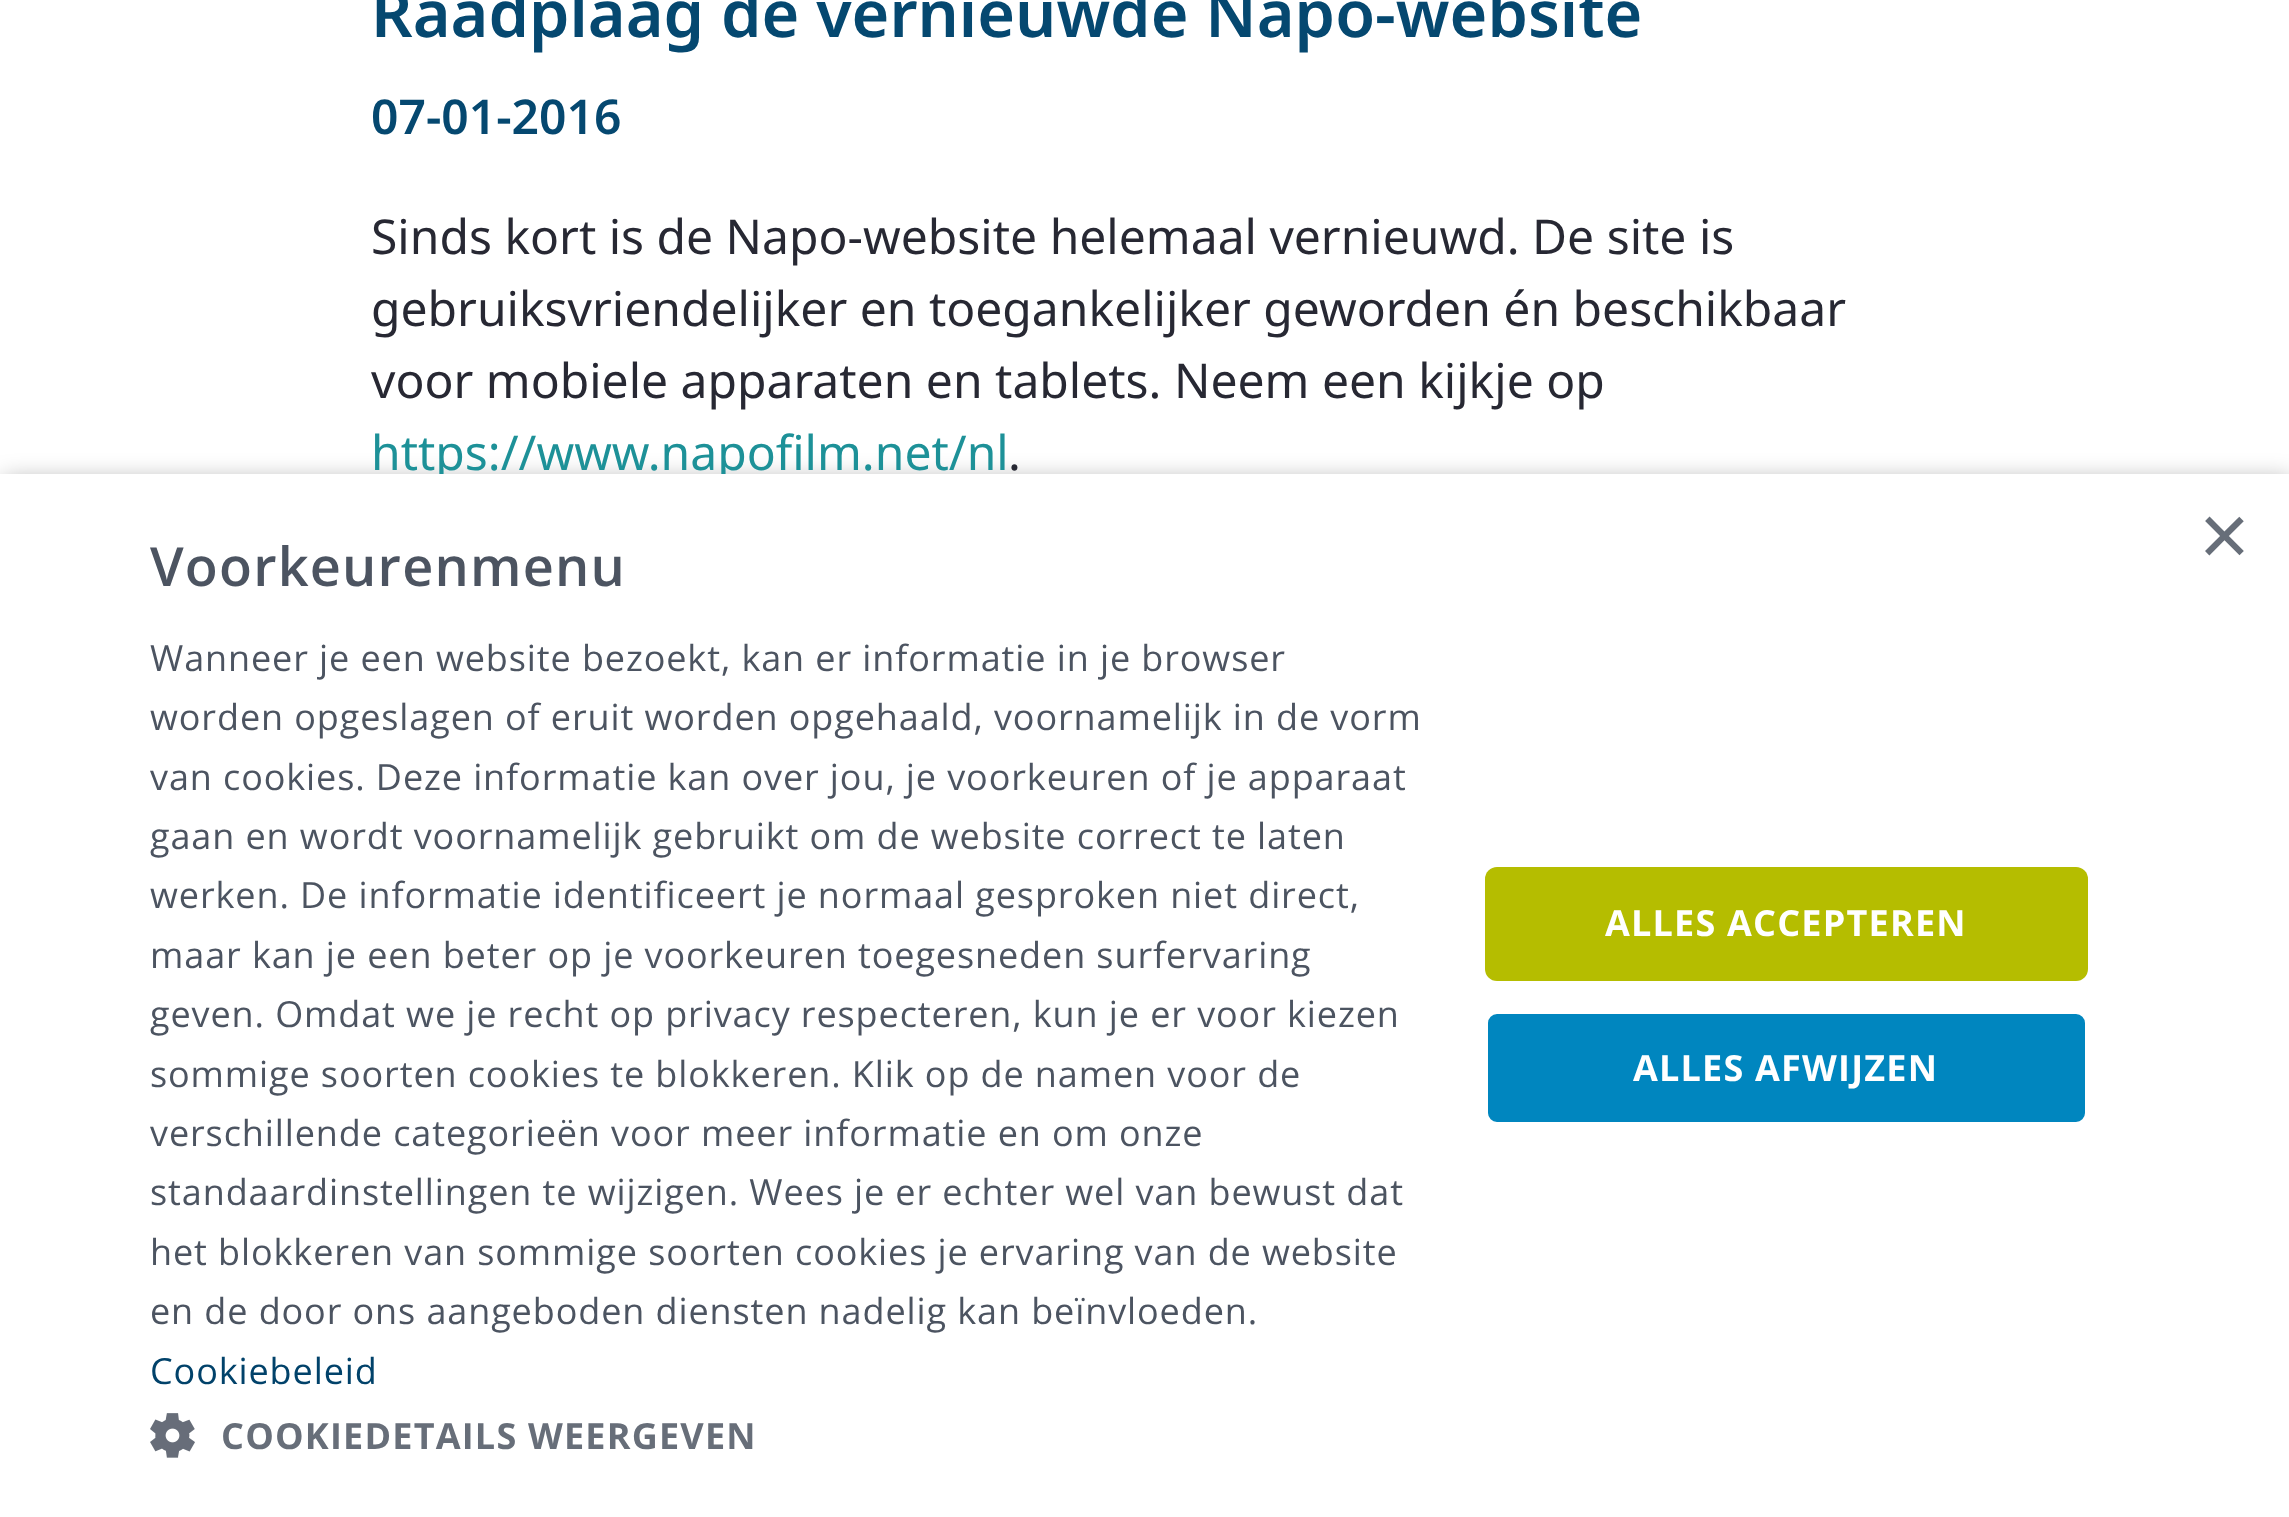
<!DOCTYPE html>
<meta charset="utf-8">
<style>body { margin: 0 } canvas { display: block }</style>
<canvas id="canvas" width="2289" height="1517"></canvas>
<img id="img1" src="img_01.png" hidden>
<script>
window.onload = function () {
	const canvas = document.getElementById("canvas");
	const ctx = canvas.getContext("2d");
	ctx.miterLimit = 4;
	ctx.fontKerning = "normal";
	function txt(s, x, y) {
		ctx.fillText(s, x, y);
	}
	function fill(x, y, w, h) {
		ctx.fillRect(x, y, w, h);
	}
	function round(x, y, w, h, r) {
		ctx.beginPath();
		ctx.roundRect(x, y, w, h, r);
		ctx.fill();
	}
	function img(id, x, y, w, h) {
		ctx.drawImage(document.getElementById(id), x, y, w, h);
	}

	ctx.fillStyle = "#FFFFFF";
	fill(0, 0, 2289, 1517);
	ctx.fillStyle = "rgba(0, 0, 0, 0.35)";
	ctx.filter = "blur(12px)";
	ctx.beginPath();
	ctx.rect(3, 480, 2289, 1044);
	ctx.fill();
	ctx.filter = "none";
	ctx.font = "600 64.75px Noto Sans";
	ctx.fillStyle = "#054870";
	txt("Raadplaag de vernieuwde Napo-website", 371, 37);
	ctx.font = "600 48px Noto Sans";
	txt("07-01-2016", 371, 134);
	ctx.font = "48px Noto Sans";
	ctx.fillStyle = "#272833";
	txt("Sinds kort is de Napo-website helemaal vernieuwd. De site is", 371, 254);
	txt("gebruiksvriendelijker en toegankelijker geworden én beschikbaar", 371, 326);
	txt("voor mobiele apparaten en tablets. Neem een kijkje op", 371, 398);
	ctx.fillStyle = "#1D9198";
	txt("https://www.napofilm.net/nl", 371, 470);
	ctx.fillStyle = "#272833";
	txt(".", 1008, 470);
	ctx.fillStyle = "#FFFFFF";
	fill(0, 474, 2289, 1043);
	ctx.font = "87px Liberation Sans";
	ctx.fillStyle = "#676E79";
	txt("×", 2199, 565);
	ctx.letterSpacing = "1.2px";
	ctx.font = "600 54px Open Sans";
	ctx.fillStyle = "#4C5461";
	txt("Voorkeurenmenu", 150, 586);
	ctx.letterSpacing = "0.9px";
	ctx.font = "36px Open Sans";
	txt("Wanneer je een website bezoekt, kan er informatie in je browser", 150, 671);
	txt("worden opgeslagen of eruit worden opgehaald, voornamelijk in de vorm", 150, 730);
	txt("van cookies. Deze informatie kan over jou, je voorkeuren of je apparaat", 150, 790);
	txt("gaan en wordt voornamelijk gebruikt om de website correct te laten", 150, 849);
	txt("werken. De informatie identificeert je normaal gesproken niet direct,", 150, 908);
	txt("maar kan je een beter op je voorkeuren toegesneden surfervaring", 150, 968);
	txt("geven. Omdat we je recht op privacy respecteren, kun je er voor kiezen", 150, 1027);
	txt("sommige soorten cookies te blokkeren. Klik op de namen voor de", 150, 1087);
	txt("verschillende categorieën voor meer informatie en om onze", 150, 1146);
	txt("standaardinstellingen te wijzigen. Wees je er echter wel van bewust dat", 150, 1205);
	txt("het blokkeren van sommige soorten cookies je ervaring van de website", 150, 1265);
	txt("en de door ons aangeboden diensten nadelig kan beïnvloeden.", 150, 1324);
	ctx.fillStyle = "#01426A";
	txt("Cookiebeleid", 150, 1384);
	img("img1", 150, 1413, 45, 45);
	ctx.letterSpacing = "1.2px";
	ctx.font = "bold 36px Open Sans";
	ctx.fillStyle = "#676E79";
	txt("COOKIEDETAILS WEERGEVEN", 221, 1449);
	ctx.fillStyle = "#B5BD00";
	round(1485, 867, 603, 114, 12);
	ctx.fillStyle = "#FFFFFF";
	txt("ALLES ACCEPTEREN", 1605, 936);
	ctx.fillStyle = "#0086BF";
	ctx.beginPath();
	ctx.roundRect(1486.5, 1012.5, 600, 111, 10.5);
	ctx.fill();
	ctx.strokeStyle = "#FFFFFF";
	ctx.lineWidth = 3;
	ctx.stroke();
	ctx.fillStyle = "#FFFFFF";
	txt("ALLES AFWIJZEN", 1633, 1081);
};
</script>
